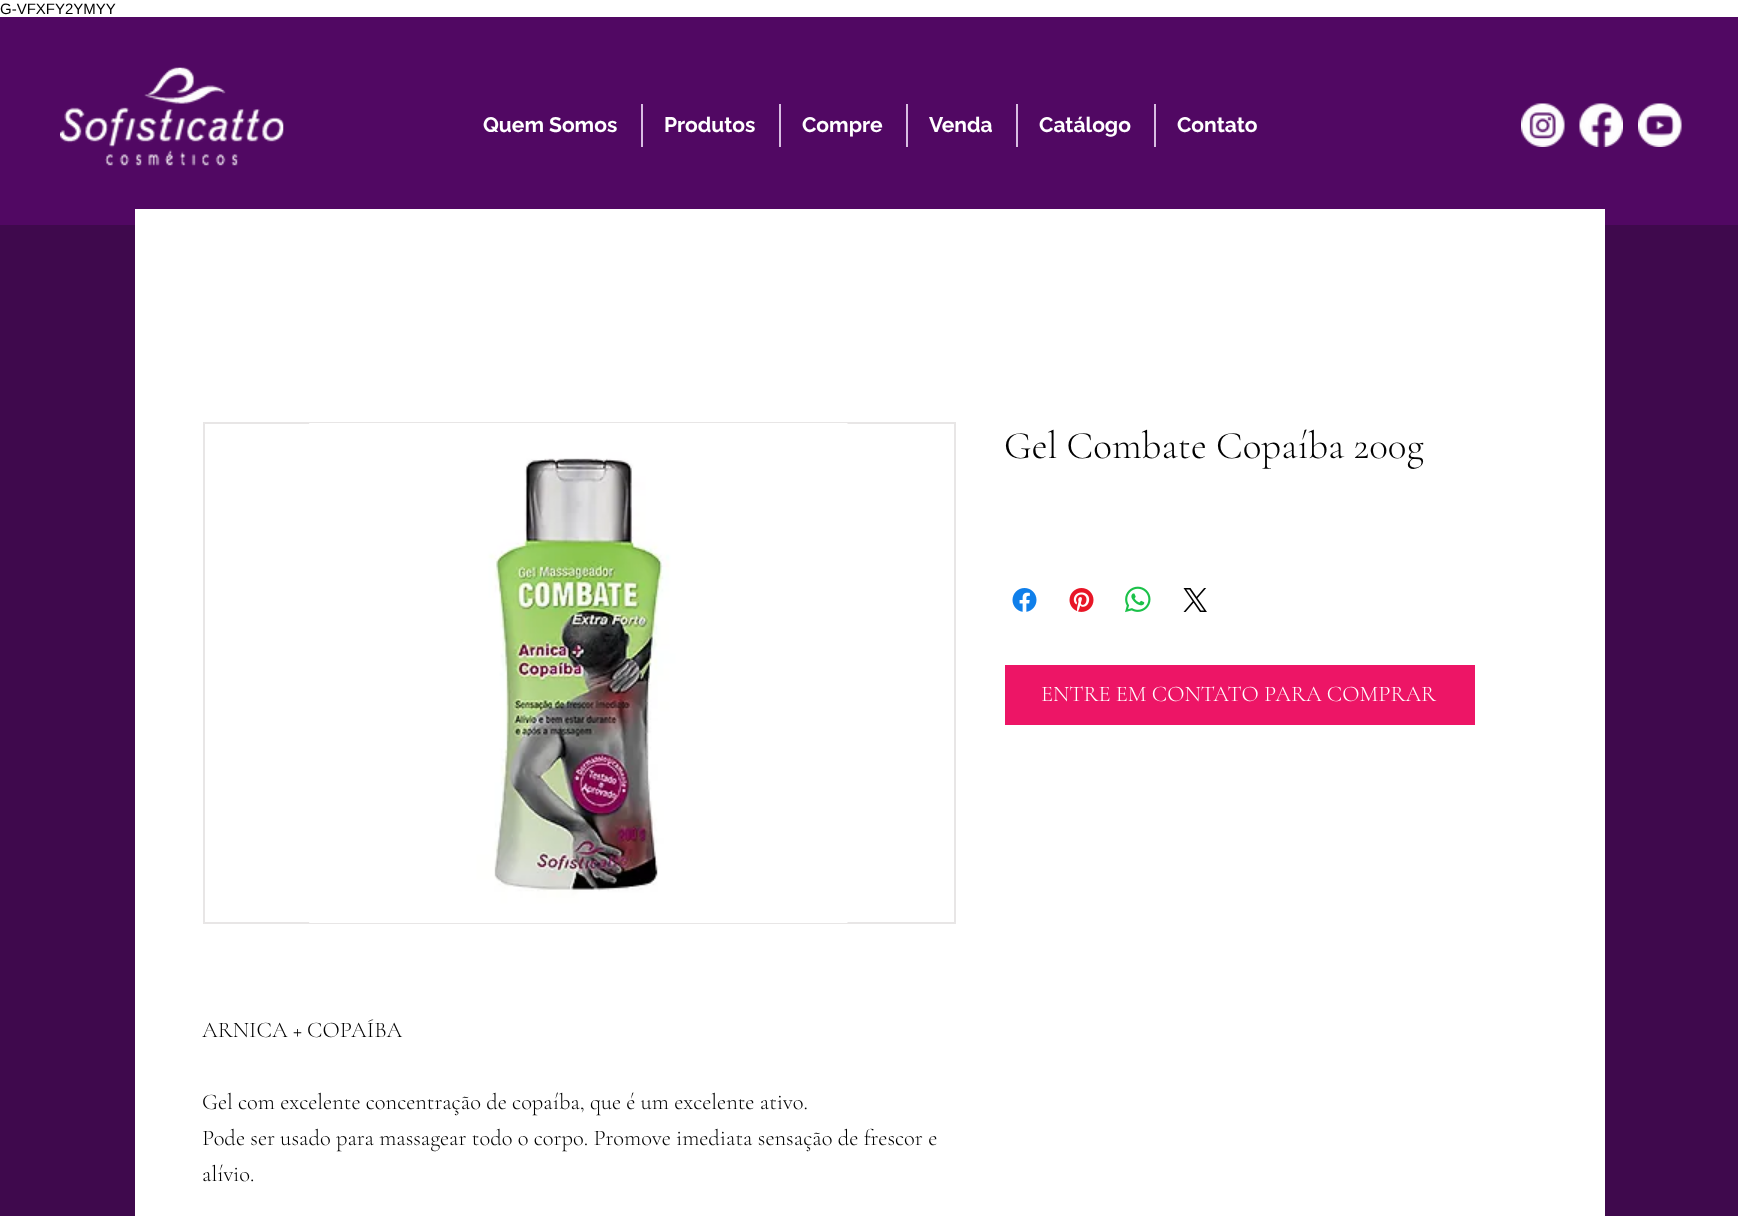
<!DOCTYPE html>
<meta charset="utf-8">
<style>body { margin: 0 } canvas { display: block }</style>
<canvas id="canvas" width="1738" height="1216"></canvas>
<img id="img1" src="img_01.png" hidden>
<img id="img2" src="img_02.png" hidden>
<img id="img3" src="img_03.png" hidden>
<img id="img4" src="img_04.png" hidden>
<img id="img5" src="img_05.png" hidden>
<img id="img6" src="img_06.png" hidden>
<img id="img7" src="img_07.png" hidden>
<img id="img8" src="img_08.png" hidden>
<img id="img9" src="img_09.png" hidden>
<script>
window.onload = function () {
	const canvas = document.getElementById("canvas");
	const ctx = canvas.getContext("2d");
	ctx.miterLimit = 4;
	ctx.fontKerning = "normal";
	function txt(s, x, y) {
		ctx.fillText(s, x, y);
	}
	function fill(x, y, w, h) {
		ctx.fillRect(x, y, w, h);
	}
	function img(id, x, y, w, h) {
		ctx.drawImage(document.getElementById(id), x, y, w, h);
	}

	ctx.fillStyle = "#FFFFFF";
	fill(0, 0, 1738, 1216);
	ctx.fillStyle = "#510863";
	fill(0, 17, 1738, 208);
	img("img1", 60, 67, 224, 99);
	ctx.fillStyle = "#D8BDE2";
	fill(641, 104, 2, 43);
	fill(779, 104, 2, 43);
	fill(906, 104, 2, 43);
	fill(1016, 104, 2, 43);
	fill(1154, 104, 2, 43);
	img("img2", 1521, 103, 44, 44);
	img("img3", 1579, 103, 44, 44);
	img("img4", 1638, 103, 44, 44);
	ctx.fillStyle = "#3F094D";
	fill(0, 225, 1738, 991);
	ctx.fillStyle = "#FFFFFF";
	fill(135, 209, 1470, 1007);
	img("img5", 1012, 588, 25, 24);
	img("img6", 1069, 588, 25, 24);
	img("img7", 1125, 586, 26, 27);
	img("img8", 1183, 588, 24, 24);
	ctx.strokeStyle = "#E8E6E6";
	ctx.lineWidth = 2;
	ctx.strokeRect(204, 423, 751, 500);
	img("img9", 309, 423, 539, 500);
	ctx.fillStyle = "#ED1566";
	fill(1005, 665, 470, 60);
	ctx.font = "15px Liberation Sans";
	ctx.fillStyle = "#000000";
	txt("G-VFXFY2YMYY", 0, 14);
	ctx.font = "bold 21px Raleway";
	ctx.fillStyle = "#FFFFFF";
	txt("Quem Somos", 483, 132);
	txt("Produtos", 664, 132);
	txt("Compre", 802, 132);
	txt("Venda", 929, 132);
	txt("Catálogo", 1039, 132);
	txt("Contato", 1177, 132);
	ctx.font = "300 39px Cormorant Garamond";
	ctx.fillStyle = "#000000";
	txt("Gel Combate Copaíba 200g", 1004, 458);
	ctx.font = "300 22.5px Cormorant Garamond";
	txt("ARNICA + COPAÍBA", 202, 1037);
	txt("Gel com excelente concentração de copaíba, que é um excelente ativo.", 202, 1109);
	txt("Pode ser usado para massagear todo o corpo. Promove imediata sensação de frescor e", 202, 1145);
	txt("alívio.", 202, 1181);
	ctx.fillStyle = "#FFFFFF";
	txt("ENTRE EM CONTATO PARA COMPRAR", 1041, 701);
};
</script>
